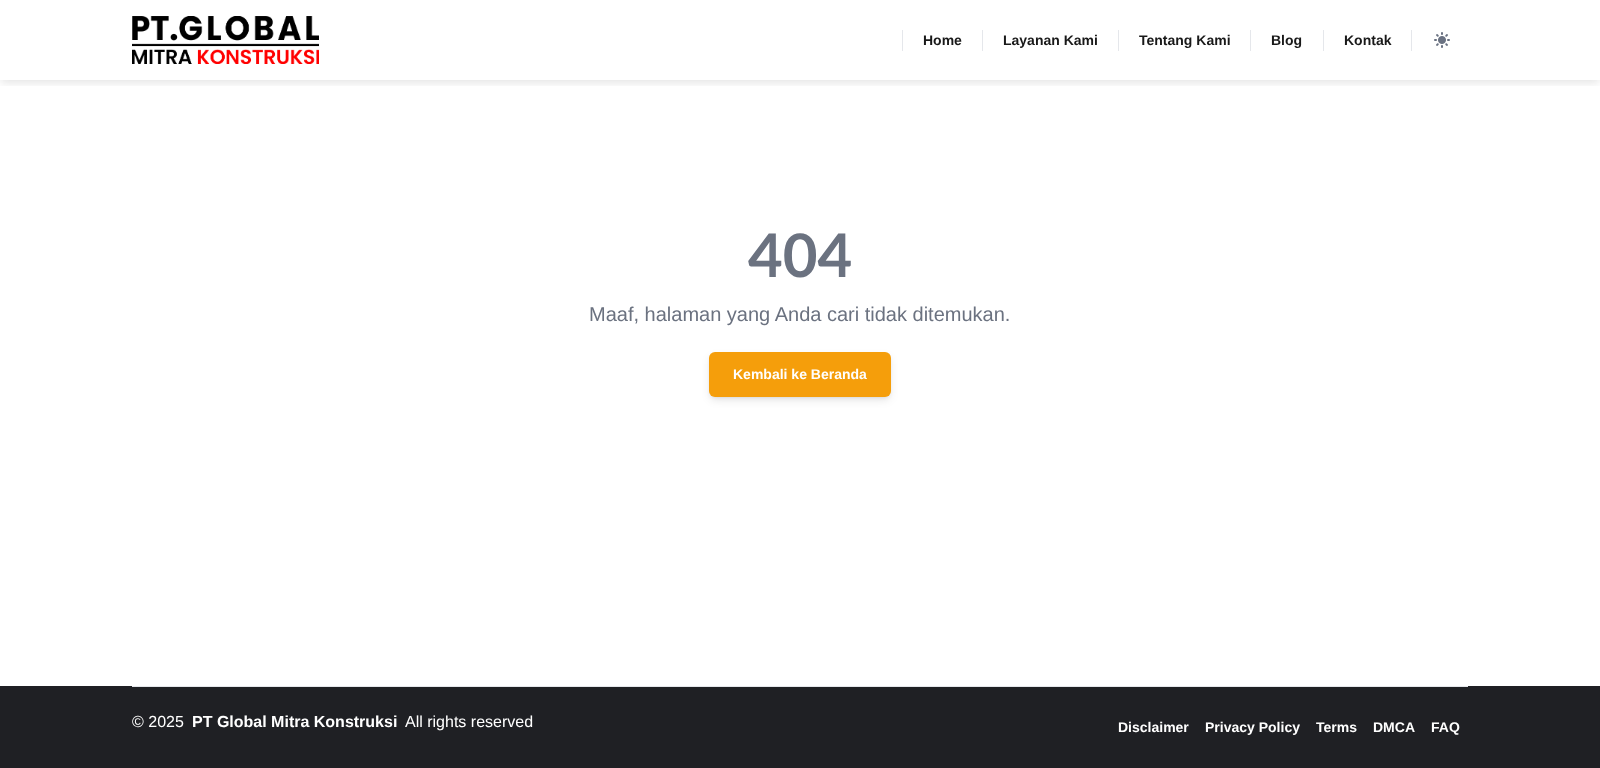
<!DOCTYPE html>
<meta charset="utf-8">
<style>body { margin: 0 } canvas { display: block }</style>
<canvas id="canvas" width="1600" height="768"></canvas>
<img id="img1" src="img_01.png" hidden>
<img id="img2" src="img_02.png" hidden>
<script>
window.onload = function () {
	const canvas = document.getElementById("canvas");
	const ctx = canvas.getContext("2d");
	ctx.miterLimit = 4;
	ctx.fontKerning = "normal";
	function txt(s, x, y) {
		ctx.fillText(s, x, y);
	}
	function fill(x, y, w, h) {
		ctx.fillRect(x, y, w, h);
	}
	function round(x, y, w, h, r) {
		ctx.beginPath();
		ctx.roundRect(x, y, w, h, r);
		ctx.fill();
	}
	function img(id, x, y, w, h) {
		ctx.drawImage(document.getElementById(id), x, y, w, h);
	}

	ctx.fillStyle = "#FFFFFF";
	fill(0, 0, 1600, 768);
	ctx.save();
	ctx.beginPath();
	ctx.rect(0, 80, 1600, 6);
	ctx.clip();
	ctx.fillStyle = "rgba(0, 0, 0, 0.1)";
	ctx.filter = "blur(4px)";
	ctx.beginPath();
	ctx.rect(1, 5, 1598, 78);
	ctx.fill();
	ctx.filter = "none";
	ctx.restore();
	img("img1", 132, 16, 187, 48);
	ctx.fillStyle = "#E5E7EB";
	fill(902, 30, 1, 21);
	fill(982, 30, 1, 21);
	fill(1118, 30, 1, 21);
	fill(1250, 30, 1, 21);
	fill(1411, 30, 1, 21);
	fill(1323, 30, 1, 21);
	img("img2", 1434, 32, 16, 16);
	ctx.fillStyle = "rgba(0, 0, 0, 0.1)";
	ctx.filter = "blur(2px)";
	ctx.beginPath();
	ctx.roundRect(711, 356, 178, 41, 4);
	ctx.fill();
	ctx.filter = "none";
	ctx.filter = "blur(4px)";
	ctx.beginPath();
	ctx.roundRect(710, 357, 180, 43, 5);
	ctx.fill();
	ctx.filter = "none";
	ctx.fillStyle = "#F59E0B";
	round(709, 352, 182, 45, 6);
	ctx.fillStyle = "#1F2024";
	fill(0, 686, 1600, 82);
	ctx.fillStyle = "#E5E7EB";
	fill(132, 686, 1336, 1);
	ctx.font = "bold 14px Liberation Sans";
	ctx.fillStyle = "#191919";
	txt("Home", 923, 45);
	txt("Layanan Kami", 1003, 45);
	txt("Tentang Kami", 1139, 45);
	txt("Blog", 1271, 45);
	txt("Kontak", 1344, 45);
	ctx.font = "bold 60px Lato";
	ctx.fillStyle = "#6B7280";
	txt("404", 748, 277);
	ctx.font = "20px Liberation Sans";
	txt("Maaf, halaman yang Anda cari tidak ditemukan.", 589, 321);
	ctx.font = "bold 14px Liberation Sans";
	ctx.fillStyle = "#FFFFFF";
	txt("Kembali ke Beranda", 733, 379);
	ctx.font = "16px Liberation Sans";
	txt("© 2025", 132, 727);
	ctx.font = "bold 16px Liberation Sans";
	txt("PT Global Mitra Konstruksi", 192, 727);
	ctx.font = "16px Liberation Sans";
	txt("All rights reserved", 405, 727);
	ctx.font = "bold 14px Liberation Sans";
	txt("Disclaimer", 1118, 732);
	txt("Privacy Policy", 1205, 732);
	txt("Terms", 1316, 732);
	txt("DMCA", 1373, 732);
	txt("FAQ", 1431, 732);
};
</script>
